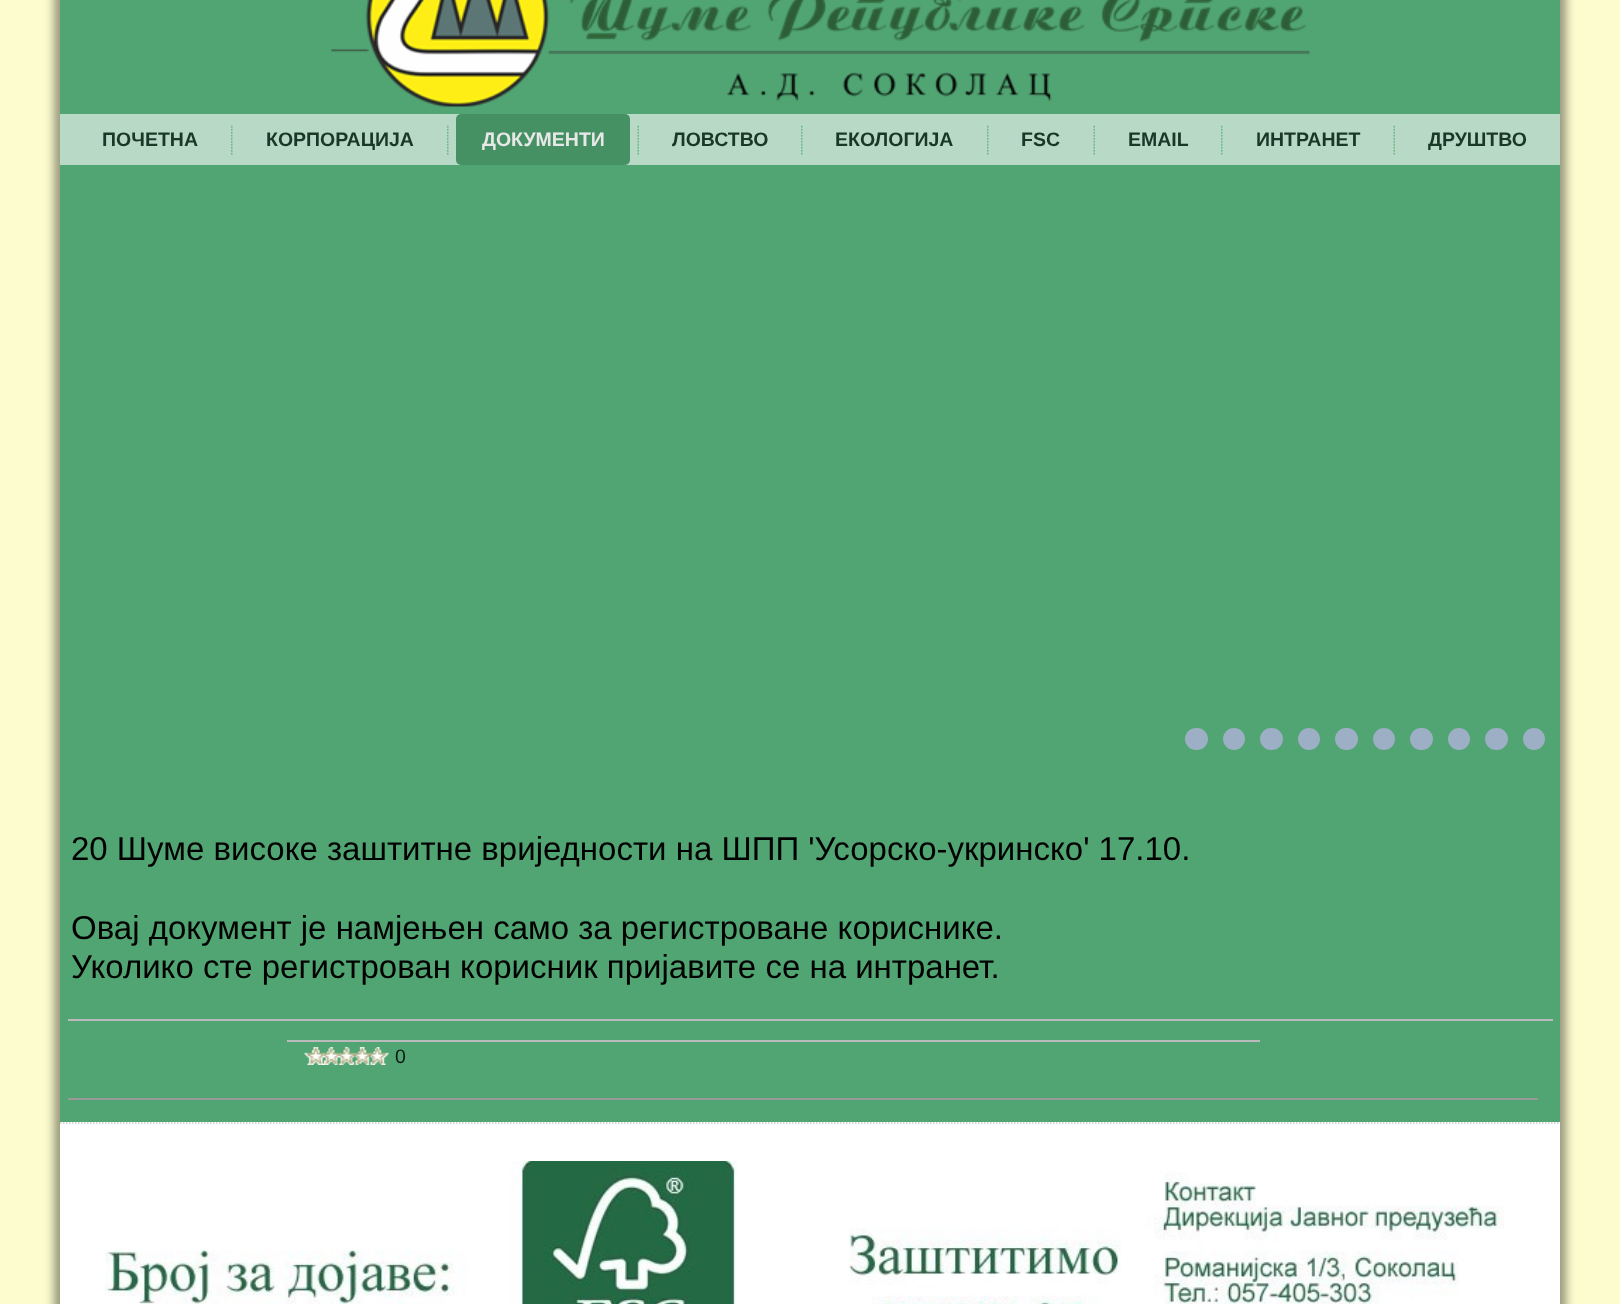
<!DOCTYPE html>
<meta charset="utf-8">
<style>body { margin: 0 } canvas { display: block }</style>
<canvas id="canvas" width="1620" height="1304"></canvas>
<img id="img1" src="img_01.png" hidden>
<img id="img2" src="img_02.png" hidden>
<img id="img3" src="img_03.png" hidden>
<img id="img4" src="img_04.png" hidden>
<img id="img5" src="img_05.png" hidden>
<script>
window.onload = function () {
	const canvas = document.getElementById("canvas");
	const ctx = canvas.getContext("2d");
	ctx.miterLimit = 4;
	ctx.fontKerning = "normal";
	function txt(s, x, y) {
		ctx.fillText(s, x, y);
	}
	function fill(x, y, w, h) {
		ctx.fillRect(x, y, w, h);
	}
	function round(x, y, w, h, r) {
		ctx.beginPath();
		ctx.roundRect(x, y, w, h, r);
		ctx.fill();
	}
	function img(id, x, y, w, h) {
		ctx.drawImage(document.getElementById(id), x, y, w, h);
	}

	ctx.fillStyle = "#FCFCCF";
	fill(0, 0, 1620, 1304);
	ctx.fillStyle = "rgba(0, 0, 0, 0.4)";
	ctx.filter = "blur(5px)";
	ctx.beginPath();
	ctx.rect(54, -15, 1512, 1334);
	ctx.fill();
	ctx.filter = "none";
	ctx.fillStyle = "#50A572";
	fill(60, 0, 1500, 1122);
	img("img1", 331, 0, 979, 107);
	ctx.fillStyle = "#B7D9C5";
	fill(60, 114, 1500, 51);
	img("img2", 231, 125, 2, 30);
	img("img2", 447, 125, 2, 30);
	ctx.fillStyle = "#469164";
	round(456, 114, 174, 51, 5);
	img("img3", 637, 125, 2, 30);
	img("img2", 801, 125, 2, 30);
	img("img2", 987, 125, 2, 30);
	img("img3", 1093, 125, 2, 30);
	img("img2", 1221, 125, 2, 30);
	img("img3", 1393, 125, 2, 30);
	ctx.fillStyle = "#9CAFC4";
	round(1185, 728, 23, 22, 11);
	ctx.beginPath();
	ctx.arc(1234, 739, 11, 0, Math.PI * 2);
	ctx.fill();
	round(1260, 728, 23, 22, 11);
	ctx.beginPath();
	ctx.arc(1309, 739, 11, 0, Math.PI * 2);
	ctx.fill();
	round(1335, 728, 23, 22, 11);
	ctx.beginPath();
	ctx.arc(1384, 739, 11, 0, Math.PI * 2);
	ctx.fill();
	round(1410, 728, 23, 22, 11);
	ctx.beginPath();
	ctx.arc(1459, 739, 11, 0, Math.PI * 2);
	ctx.fill();
	round(1485, 728, 23, 22, 11);
	ctx.beginPath();
	ctx.arc(1534, 739, 11, 0, Math.PI * 2);
	ctx.fill();
	ctx.fillStyle = "#BBBBBB";
	fill(68, 1019, 1485, 2);
	fill(287, 1040, 973, 2);
	img("img4", 304, 1047, 85, 18);
	ctx.fillStyle = "#999999";
	fill(68, 1098, 1470, 2);
	ctx.fillStyle = "#FFFFFF";
	fill(60, 1122, 1500, 182);
	ctx.beginPath();
	ctx.moveTo(60, 1123);
	ctx.lineTo(1560, 1123);
	ctx.strokeStyle = "#C6C7C7";
	ctx.lineWidth = 1.5;
	ctx.setLineDash([1.5, 1.5]);
	ctx.stroke();
	img("img5", 105, 1161, 1399, 143);
	ctx.font = "bold 19.5px Liberation Sans";
	ctx.fillStyle = "#1B3726";
	txt("ПОЧЕТНА", 102, 146);
	txt("КОРПОРАЦИЈА", 266, 146);
	ctx.fillStyle = "#E8E8E8";
	txt("ДОКУМЕНТИ", 482, 146);
	ctx.fillStyle = "#1B3726";
	txt("ЛОВСТВО", 672, 146);
	txt("ЕКОЛОГИЈА", 835, 146);
	txt("FSC", 1021, 146);
	txt("EMAIL", 1128, 146);
	txt("ИНТРАНЕТ", 1256, 146);
	txt("ДРУШТВО", 1428, 146);
	ctx.font = "33px Liberation Sans";
	ctx.fillStyle = "#000000";
	txt("20 Шуме високе заштитне вриједности на ШПП 'Усорско-укринско' 17.10.", 71, 860);
	txt("Овај документ је намјењен само за регистроване кориснике.", 71, 939);
	txt("Уколико сте регистрован корисник пријавите се на интранет.", 71, 978);
	ctx.font = "19.5px Liberation Sans";
	ctx.fillStyle = "#0C1811";
	txt("0", 395, 1063);
};
</script>
